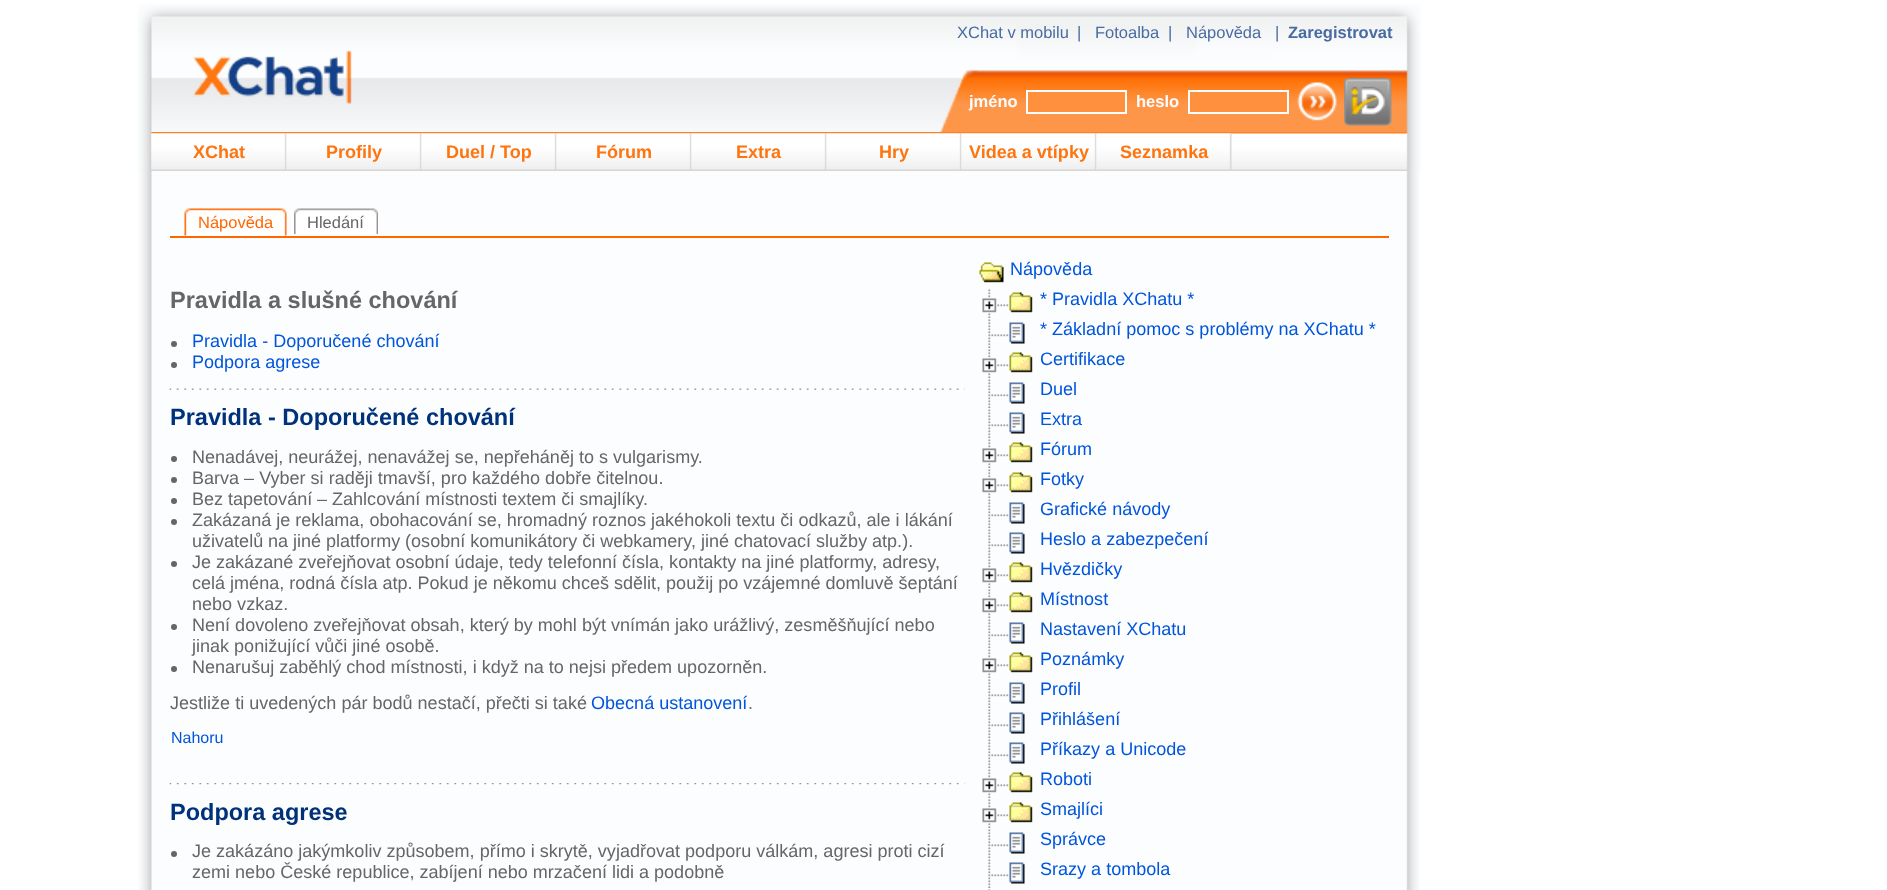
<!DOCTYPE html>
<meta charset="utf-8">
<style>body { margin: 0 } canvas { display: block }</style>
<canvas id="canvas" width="1887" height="890"></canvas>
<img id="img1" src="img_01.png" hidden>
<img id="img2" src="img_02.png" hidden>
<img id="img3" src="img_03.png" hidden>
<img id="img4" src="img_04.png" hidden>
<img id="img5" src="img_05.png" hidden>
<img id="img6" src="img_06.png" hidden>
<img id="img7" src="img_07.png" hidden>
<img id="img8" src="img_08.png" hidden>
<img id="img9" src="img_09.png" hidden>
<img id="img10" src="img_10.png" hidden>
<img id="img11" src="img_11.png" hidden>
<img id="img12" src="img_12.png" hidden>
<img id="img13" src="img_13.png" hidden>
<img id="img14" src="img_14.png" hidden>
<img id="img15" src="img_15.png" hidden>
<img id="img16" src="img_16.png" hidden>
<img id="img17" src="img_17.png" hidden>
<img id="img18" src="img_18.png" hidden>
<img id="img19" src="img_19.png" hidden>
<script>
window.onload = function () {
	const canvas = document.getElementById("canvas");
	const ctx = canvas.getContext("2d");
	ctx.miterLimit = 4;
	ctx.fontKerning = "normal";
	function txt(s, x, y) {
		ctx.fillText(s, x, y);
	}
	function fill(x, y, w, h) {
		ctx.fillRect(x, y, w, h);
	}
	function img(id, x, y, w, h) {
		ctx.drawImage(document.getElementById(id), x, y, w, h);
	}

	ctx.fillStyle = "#FFFFFF";
	fill(0, 0, 1887, 890);
	img("img1", 137, 4, 1284, 128);
	ctx.fillStyle = "#FE903E";
	ctx.beginPath();
	ctx.rect(1027, 91, 99, 22);
	ctx.fill();
	ctx.strokeStyle = "#FCFDFE";
	ctx.lineWidth = 2;
	ctx.stroke();
	ctx.beginPath();
	ctx.rect(1189, 91, 99, 22);
	ctx.fill();
	ctx.stroke();
	img("img2", 1297, 82, 40, 39);
	img("img3", 1344, 78, 48, 48);
	img("img4", 137, 132, 1284, 39);
	img("img5", 151, 133, 136, 37);
	img("img6", 286, 133, 136, 37);
	img("img6", 421, 133, 136, 37);
	img("img6", 556, 133, 136, 37);
	img("img6", 691, 133, 136, 37);
	img("img6", 826, 133, 136, 37);
	img("img6", 961, 133, 136, 37);
	img("img6", 1096, 133, 136, 37);
	img("img7", 138, 171, 1282, 719);
	img("img8", 279, 208, 8, 28);
	img("img9", 184, 208, 95, 28);
	img("img10", 370, 208, 8, 26);
	img("img11", 294, 208, 77, 26);
	ctx.fillStyle = "#FF6600";
	fill(170, 236, 1219, 2);
	ctx.fillStyle = "#666666";
	ctx.beginPath();
	ctx.arc(174, 344, 3, 0, Math.PI * 2);
	ctx.fill();
	ctx.beginPath();
	ctx.arc(174, 365, 3, 0, Math.PI * 2);
	ctx.fill();
	img("img12", 169, 388, 796, 2);
	ctx.beginPath();
	ctx.arc(174, 459, 3, 0, Math.PI * 2);
	ctx.fill();
	ctx.beginPath();
	ctx.arc(174, 480, 3, 0, Math.PI * 2);
	ctx.fill();
	ctx.beginPath();
	ctx.arc(174, 501, 3, 0, Math.PI * 2);
	ctx.fill();
	ctx.beginPath();
	ctx.arc(174, 522, 3, 0, Math.PI * 2);
	ctx.fill();
	ctx.beginPath();
	ctx.arc(174, 564, 3, 0, Math.PI * 2);
	ctx.fill();
	ctx.beginPath();
	ctx.arc(174, 627, 3, 0, Math.PI * 2);
	ctx.fill();
	ctx.beginPath();
	ctx.arc(174, 669, 3, 0, Math.PI * 2);
	ctx.fill();
	img("img13", 169, 783, 796, 2);
	ctx.beginPath();
	ctx.arc(174, 854, 3, 0, Math.PI * 2);
	ctx.fill();
	img("img14", 979, 262, 25, 21);
	img("img15", 982, 289, 27, 29);
	img("img16", 1009, 292, 24, 21);
	img("img17", 988, 319, 21, 29);
	img("img18", 1009, 322, 16, 22);
	img("img15", 982, 349, 27, 29);
	img("img16", 1009, 352, 24, 21);
	img("img17", 988, 379, 21, 29);
	img("img18", 1009, 382, 16, 22);
	img("img17", 988, 409, 21, 29);
	img("img18", 1009, 412, 16, 22);
	img("img15", 982, 439, 27, 29);
	img("img16", 1009, 442, 24, 21);
	img("img15", 982, 469, 27, 29);
	img("img16", 1009, 472, 24, 21);
	img("img17", 988, 499, 21, 29);
	img("img18", 1009, 502, 16, 22);
	img("img17", 988, 529, 21, 29);
	img("img18", 1009, 532, 16, 22);
	img("img15", 982, 559, 27, 29);
	img("img16", 1009, 562, 24, 21);
	img("img15", 982, 589, 27, 29);
	img("img16", 1009, 592, 24, 21);
	img("img17", 988, 619, 21, 29);
	img("img18", 1009, 622, 16, 22);
	img("img15", 982, 649, 27, 29);
	img("img16", 1009, 652, 24, 21);
	img("img17", 988, 679, 21, 29);
	img("img18", 1009, 682, 16, 22);
	img("img17", 988, 709, 21, 29);
	img("img18", 1009, 712, 16, 22);
	img("img17", 988, 739, 21, 29);
	img("img18", 1009, 742, 16, 22);
	img("img15", 982, 769, 27, 29);
	img("img16", 1009, 772, 24, 21);
	img("img15", 982, 799, 27, 29);
	img("img16", 1009, 802, 24, 21);
	img("img17", 988, 829, 21, 29);
	img("img18", 1009, 832, 16, 22);
	img("img17", 988, 859, 21, 29);
	img("img18", 1009, 862, 16, 22);
	img("img19", 988, 889, 3, 1);
	ctx.font = "16.5px Liberation Sans";
	ctx.fillStyle = "#486BA2";
	txt("XChat v mobilu", 957, 38);
	txt("|", 1077, 38);
	txt("Fotoalba", 1095, 38);
	txt("|", 1168, 38);
	txt("Nápověda", 1186, 38);
	txt("|", 1275, 38);
	ctx.font = "bold 16.5px Liberation Sans";
	txt("Zaregistrovat", 1288, 38);
	ctx.fillStyle = "#FCFDFE";
	txt("jméno", 969, 107);
	txt("heslo", 1136, 107);
	ctx.font = "bold 18.05px Liberation Sans";
	ctx.fillStyle = "#FE7510";
	txt("XChat", 193, 158);
	txt("Profily", 326, 158);
	txt("Duel / Top", 446, 158);
	txt("Fórum", 596, 158);
	txt("Extra", 736, 158);
	txt("Hry", 879, 158);
	txt("Videa a vtípky", 969, 158);
	txt("Seznamka", 1120, 158);
	ctx.font = "16.5px Liberation Sans";
	ctx.fillStyle = "#FF6600";
	txt("Nápověda", 198, 228);
	ctx.fillStyle = "#666666";
	txt("Hledání", 307, 228);
	ctx.font = "bold 23.5px Liberation Sans";
	txt("Pravidla a slušné chování", 170, 308);
	ctx.font = "18.05px Liberation Sans";
	ctx.fillStyle = "#0055DD";
	txt("Pravidla - Doporučené chování", 192, 347);
	txt("Podpora agrese", 192, 368);
	ctx.font = "bold 23.5px Liberation Sans";
	ctx.fillStyle = "#00327B";
	txt("Pravidla - Doporučené chování", 170, 425);
	ctx.font = "18.05px Liberation Sans";
	ctx.fillStyle = "#666666";
	txt("Nenadávej, neurážej, nenavážej se, nepřeháněj to s vulgarismy.", 192, 463);
	txt("Barva – Vyber si raději tmavší, pro každého dobře čitelnou.", 192, 484);
	ctx.wordSpacing = "-0.1px";
	txt("Bez tapetování – Zahlcování místnosti textem či smajlíky.", 192, 505);
	ctx.wordSpacing = "0px";
	txt("Zakázaná je reklama, obohacování se, hromadný roznos jakéhokoli textu či odkazů, ale i lákání", 192, 526);
	ctx.wordSpacing = "-0.1px";
	txt("uživatelů na jiné platformy (osobní komunikátory či webkamery, jiné chatovací služby atp.).", 192, 547);
	ctx.wordSpacing = "0px";
	txt("Je zakázané zveřejňovat osobní údaje, tedy telefonní čísla, kontakty na jiné platformy, adresy,", 192, 568);
	txt("celá jména, rodná čísla atp. Pokud je někomu chceš sdělit, použij po vzájemné domluvě šeptání", 192, 589);
	txt("nebo vzkaz.", 192, 610);
	txt("Není dovoleno zveřejňovat obsah, který by mohl být vnímán jako urážlivý, zesměšňující nebo", 192, 631);
	txt("jinak ponižující vůči jiné osobě.", 192, 652);
	txt("Nenarušuj zaběhlý chod místnosti, i když na to nejsi předem upozorněn.", 192, 673);
	txt("Jestliže ti uvedených pár bodů nestačí, přečti si také", 170, 709);
	ctx.fillStyle = "#0055DD";
	txt("Obecná ustanovení", 591, 709);
	ctx.fillStyle = "#666666";
	txt(".", 748, 709);
	ctx.font = "16px Liberation Sans";
	ctx.fillStyle = "#0055DD";
	txt("Nahoru", 171, 743);
	ctx.font = "bold 23.5px Liberation Sans";
	ctx.fillStyle = "#00327B";
	txt("Podpora agrese", 170, 820);
	ctx.font = "18.05px Liberation Sans";
	ctx.fillStyle = "#666666";
	txt("Je zakázáno jakýmkoliv způsobem, přímo i skrytě, vyjadřovat podporu válkám, agresi proti cizí", 192, 857);
	txt("zemi nebo České republice, zabíjení nebo mrzačení lidi a podobně", 192, 878);
	ctx.fillStyle = "#0055DD";
	txt("Nápověda", 1010, 275);
	txt("* Pravidla XChatu *", 1040, 305);
	txt("* Základní pomoc s problémy na XChatu *", 1040, 335);
	txt("Certifikace", 1040, 365);
	txt("Duel", 1040, 395);
	txt("Extra", 1040, 425);
	txt("Fórum", 1040, 455);
	txt("Fotky", 1040, 485);
	txt("Grafické návody", 1040, 515);
	txt("Heslo a zabezpečení", 1040, 545);
	txt("Hvězdičky", 1040, 575);
	txt("Místnost", 1040, 605);
	txt("Nastavení XChatu", 1040, 635);
	txt("Poznámky", 1040, 665);
	txt("Profil", 1040, 695);
	txt("Přihlášení", 1040, 725);
	txt("Příkazy a Unicode", 1040, 755);
	txt("Roboti", 1040, 785);
	txt("Smajlíci", 1040, 815);
	txt("Správce", 1040, 845);
	txt("Srazy a tombola", 1040, 875);
};
</script>
